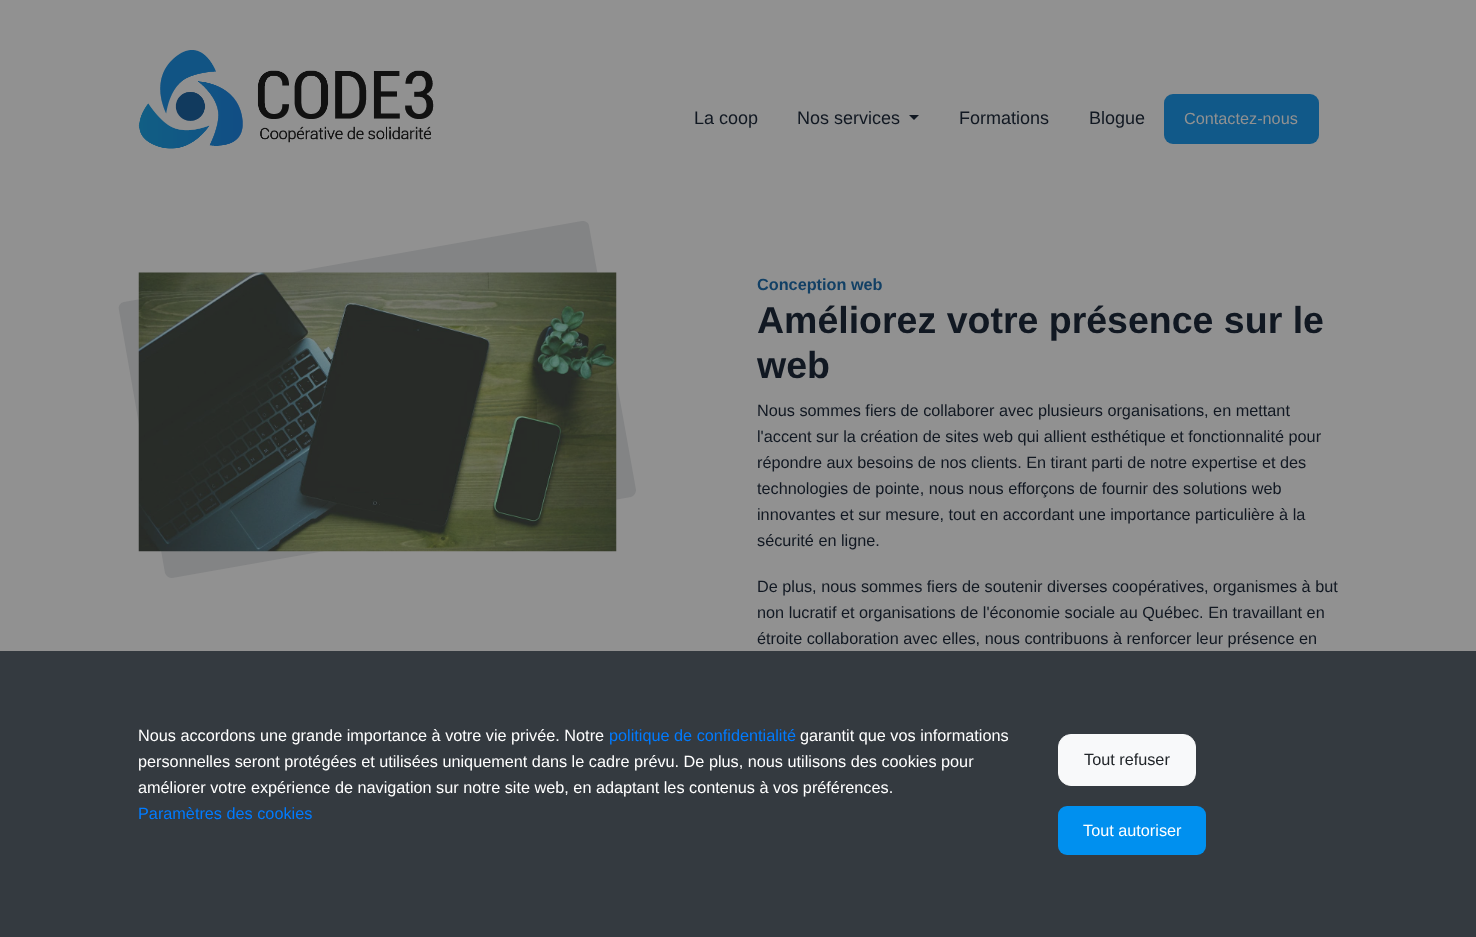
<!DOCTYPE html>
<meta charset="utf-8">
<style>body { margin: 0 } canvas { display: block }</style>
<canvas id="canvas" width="1476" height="937"></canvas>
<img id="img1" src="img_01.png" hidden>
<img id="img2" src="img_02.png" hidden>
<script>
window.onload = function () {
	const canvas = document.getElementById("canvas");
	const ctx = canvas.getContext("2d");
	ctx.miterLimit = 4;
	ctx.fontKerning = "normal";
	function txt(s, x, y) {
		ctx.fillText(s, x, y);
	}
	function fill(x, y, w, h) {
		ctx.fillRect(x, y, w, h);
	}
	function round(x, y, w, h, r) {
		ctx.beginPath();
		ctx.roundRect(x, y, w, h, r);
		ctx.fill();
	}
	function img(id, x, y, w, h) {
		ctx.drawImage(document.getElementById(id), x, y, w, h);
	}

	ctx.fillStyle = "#919191";
	fill(0, 0, 1476, 937);
	img("img1", 138, 50, 296, 99);
	ctx.fillStyle = "#111822";
	ctx.beginPath();
	ctx.moveTo(909, 115);
	ctx.lineTo(919, 115);
	ctx.lineTo(914, 120);
	ctx.closePath();
	ctx.fill();
	ctx.fillStyle = "#115989";
	round(1164, 94, 155, 50, 9);
	ctx.fillStyle = "#838485";
	ctx.beginPath();
	ctx.moveTo(124, 302);
	ctx.lineTo(582, 221);
	ctx.bezierCurveTo(586, 221, 589, 223, 589, 226);
	ctx.lineTo(636, 490);
	ctx.bezierCurveTo(636, 493, 634, 496, 631, 497);
	ctx.lineTo(172, 578);
	ctx.bezierCurveTo(169, 578, 166, 576, 165, 573);
	ctx.lineTo(119, 310);
	ctx.bezierCurveTo(118, 306, 120, 303, 124, 302);
	ctx.closePath();
	ctx.fill();
	img("img2", 138, 272, 479, 280);
	ctx.fillStyle = "#343A40";
	fill(0, 651, 1476, 286);
	ctx.fillStyle = "#F8F9FA";
	ctx.beginPath();
	ctx.roundRect(1058.5, 734.5, 137, 51, 12.5);
	ctx.fill();
	ctx.strokeStyle = "#F8F9FA";
	ctx.stroke();
	ctx.fillStyle = "#0090EF";
	round(1058, 806, 148, 49, 9);
	ctx.font = "18px Liberation Sans";
	ctx.fillStyle = "#111822";
	txt("La coop", 694, 124);
	txt("Nos services", 797, 124);
	txt("Formations", 959, 124);
	txt("Blogue", 1089, 124);
	ctx.font = "16.25px Liberation Sans";
	ctx.fillStyle = "#919191";
	txt("Contactez-nous", 1184, 124);
	ctx.font = "bold 16.25px Liberation Sans";
	ctx.fillStyle = "#124065";
	txt("Conception web", 757, 290);
	ctx.font = "bold 37.5px Liberation Sans";
	ctx.fillStyle = "#111822";
	txt("Améliorez votre présence sur le", 757, 333);
	txt("web", 757, 378);
	ctx.font = "16.25px Liberation Sans";
	txt("Nous sommes fiers de collaborer avec plusieurs organisations, en mettant", 757, 416);
	txt("l'accent sur la création de sites web qui allient esthétique et fonctionnalité pour", 757, 442);
	txt("répondre aux besoins de nos clients. En tirant parti de notre expertise et des", 757, 468);
	txt("technologies de pointe, nous nous efforçons de fournir des solutions web", 757, 494);
	txt("innovantes et sur mesure, tout en accordant une importance particulière à la", 757, 520);
	txt("sécurité en ligne.", 757, 546);
	txt("De plus, nous sommes fiers de soutenir diverses coopératives, organismes à but", 757, 592);
	txt("non lucratif et organisations de l'économie sociale au Québec. En travaillant en", 757, 618);
	txt("étroite collaboration avec elles, nous contribuons à renforcer leur présence en", 757, 644);
	ctx.fillStyle = "#FFFFFF";
	txt("Nous accordons une grande importance à votre vie privée. Notre", 138, 741);
	ctx.fillStyle = "#007BFF";
	txt("politique de confidentialité", 609, 741);
	ctx.fillStyle = "#FFFFFF";
	txt("garantit que vos informations", 800, 741);
	txt("personnelles seront protégées et utilisées uniquement dans le cadre prévu. De plus, nous utilisons des cookies pour", 138, 767);
	txt("améliorer votre expérience de navigation sur notre site web, en adaptant les contenus à vos préférences.", 138, 793);
	ctx.fillStyle = "#007BFF";
	txt("Paramètres des cookies", 138, 819);
	ctx.fillStyle = "#212529";
	txt("Tout refuser", 1084, 765);
	ctx.fillStyle = "#FFFFFF";
	txt("Tout autoriser", 1083, 836);
};
</script>
